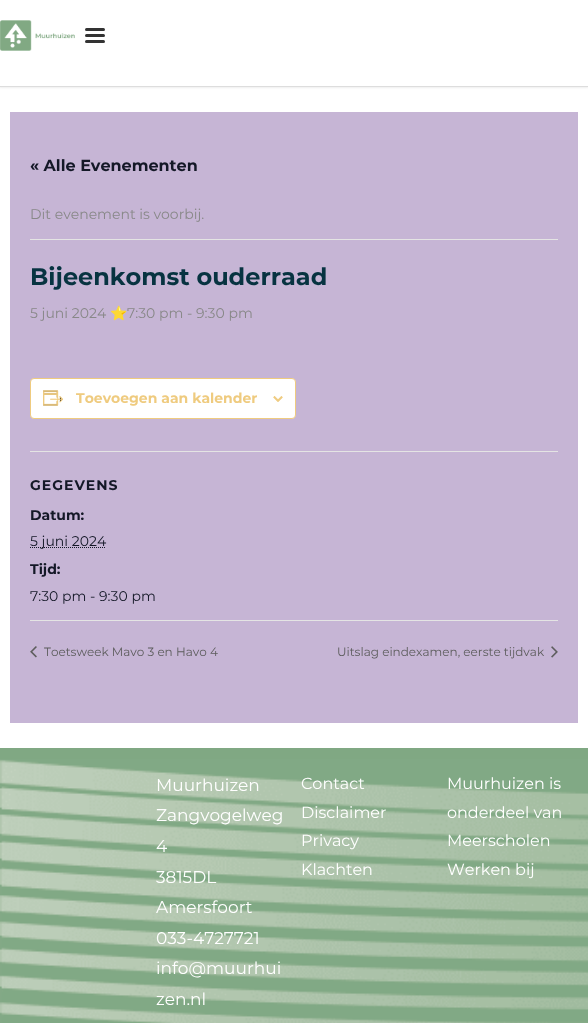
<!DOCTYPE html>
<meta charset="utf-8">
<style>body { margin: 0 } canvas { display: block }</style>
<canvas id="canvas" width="588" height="1023"></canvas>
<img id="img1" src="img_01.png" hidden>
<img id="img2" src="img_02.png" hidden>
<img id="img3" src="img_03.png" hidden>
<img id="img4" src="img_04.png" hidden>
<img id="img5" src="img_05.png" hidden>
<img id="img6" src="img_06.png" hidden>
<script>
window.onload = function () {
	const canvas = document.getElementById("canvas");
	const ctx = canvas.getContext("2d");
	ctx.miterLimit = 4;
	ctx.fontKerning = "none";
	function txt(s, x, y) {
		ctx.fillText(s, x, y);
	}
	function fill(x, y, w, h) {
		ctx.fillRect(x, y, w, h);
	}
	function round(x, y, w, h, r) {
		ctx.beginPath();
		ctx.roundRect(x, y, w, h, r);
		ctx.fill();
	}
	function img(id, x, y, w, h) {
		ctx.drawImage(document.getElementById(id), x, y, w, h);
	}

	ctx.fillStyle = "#FFFFFF";
	fill(0, 0, 588, 1023);
	ctx.fillStyle = "#DDDDDD";
	fill(0, 86, 588, 1);
	ctx.save();
	ctx.beginPath();
	ctx.rect(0, 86, 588, 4);
	ctx.clip();
	ctx.filter = "blur(1.5px)";
	ctx.beginPath();
	ctx.rect(-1, -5, 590, 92);
	ctx.fill();
	ctx.filter = "none";
	ctx.restore();
	img("img1", 0, 20, 75, 31);
	ctx.fillStyle = "#333333";
	round(85, 28, 20, 3, 1.5);
	round(85, 34, 20, 3, 1.5);
	round(85, 40, 20, 3, 1.5);
	ctx.fillStyle = "#C6B5D5";
	fill(10, 112, 568, 611);
	ctx.fillStyle = "#E4E4E4";
	fill(30, 239, 528, 1);
	ctx.fillStyle = "#FFFFFF";
	ctx.beginPath();
	ctx.roundRect(30.5, 378.5, 265, 40, 3.5);
	ctx.fill();
	ctx.strokeStyle = "#EFCB7F";
	ctx.stroke();
	img("img2", 43, 390, 20, 16);
	img("img3", 273, 396, 10, 6);
	ctx.fillStyle = "#E4E4E4";
	fill(30, 451, 528, 1);
	ctx.beginPath();
	ctx.moveTo(30, 547.5);
	ctx.lineTo(106, 547.5);
	ctx.strokeStyle = "#141827";
	ctx.setLineDash([1, 1]);
	ctx.stroke();
	fill(30, 620, 528, 1);
	img("img4", 30, 646, 7, 12);
	img("img5", 551, 646, 7, 12);
	ctx.fillStyle = "#80A883";
	fill(0, 748, 588, 275);
	img("img6", 0, 759, 588, 264);
	ctx.font = "bold 16px Montserrat";
	ctx.fillStyle = "#141827";
	txt("« Alle Evenementen", 30, 171);
	ctx.font = "14px Montserrat";
	ctx.fillStyle = "#888888";
	txt("Dit evenement is voorbij.", 30, 219);
	ctx.font = "bold 24px Montserrat";
	ctx.fillStyle = "#073341";
	txt("Bijeenkomst ouderraad", 30, 285);
	ctx.font = "14px Montserrat";
	ctx.fillStyle = "#888888";
	txt("5 juni 2024", 30, 318);
	ctx.font = "14px Noto Color Emoji";
	txt("⭐", 110, 318);
	ctx.font = "14px Montserrat";
	txt("7:30 pm - 9:30 pm", 127, 318);
	ctx.font = "bold 14px Montserrat";
	ctx.fillStyle = "#EFCB7F";
	txt("Toevoegen aan kalender", 76, 403);
	ctx.letterSpacing = "1px";
	ctx.fillStyle = "#141827";
	txt("GEGEVENS", 30, 490);
	ctx.letterSpacing = "0px";
	txt("Datum:", 30, 520);
	ctx.font = "14px Montserrat";
	txt("5 juni 2024", 30, 546);
	ctx.font = "bold 14px Montserrat";
	txt("Tijd:", 30, 574);
	ctx.font = "14px Montserrat";
	txt("7:30 pm - 9:30 pm", 30, 601);
	ctx.font = "12px Montserrat";
	ctx.fillStyle = "#5D5D5D";
	txt("Toetsweek Mavo 3 en Havo 4", 44, 656);
	txt("Uitslag eindexamen, eerste tijdvak", 337, 656);
	ctx.font = "17px Montserrat";
	ctx.fillStyle = "#FFFFFF";
	txt("Muurhuizen", 156, 791);
	txt("Zangvogelweg", 156, 821);
	txt("4", 156, 852);
	txt("3815DL", 156, 883);
	txt("Amersfoort", 156, 913);
	txt("033-4727721", 156, 944);
	txt("info@muurhui", 156, 974);
	txt("zen.nl", 156, 1005);
	ctx.font = "16px Montserrat";
	txt("Contact", 301, 789);
	txt("Disclaimer", 301, 818);
	txt("Privacy", 301, 846);
	txt("Klachten", 301, 875);
	txt("Muurhuizen is", 447, 789);
	txt("onderdeel van", 447, 818);
	txt("Meerscholen", 447, 846);
	txt("Werken bij", 447, 875);
};
</script>
